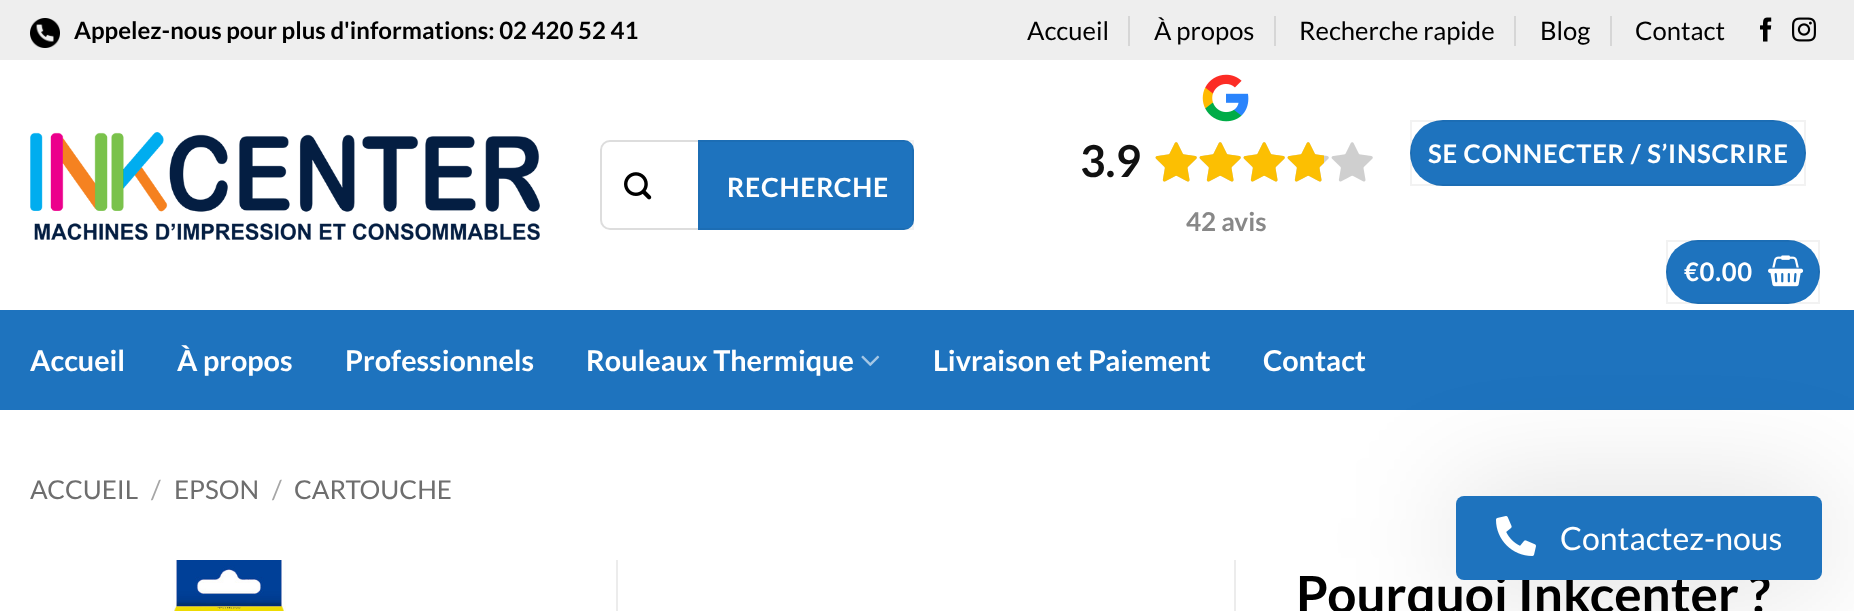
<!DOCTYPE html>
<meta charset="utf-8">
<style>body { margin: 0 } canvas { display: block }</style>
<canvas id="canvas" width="1854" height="611"></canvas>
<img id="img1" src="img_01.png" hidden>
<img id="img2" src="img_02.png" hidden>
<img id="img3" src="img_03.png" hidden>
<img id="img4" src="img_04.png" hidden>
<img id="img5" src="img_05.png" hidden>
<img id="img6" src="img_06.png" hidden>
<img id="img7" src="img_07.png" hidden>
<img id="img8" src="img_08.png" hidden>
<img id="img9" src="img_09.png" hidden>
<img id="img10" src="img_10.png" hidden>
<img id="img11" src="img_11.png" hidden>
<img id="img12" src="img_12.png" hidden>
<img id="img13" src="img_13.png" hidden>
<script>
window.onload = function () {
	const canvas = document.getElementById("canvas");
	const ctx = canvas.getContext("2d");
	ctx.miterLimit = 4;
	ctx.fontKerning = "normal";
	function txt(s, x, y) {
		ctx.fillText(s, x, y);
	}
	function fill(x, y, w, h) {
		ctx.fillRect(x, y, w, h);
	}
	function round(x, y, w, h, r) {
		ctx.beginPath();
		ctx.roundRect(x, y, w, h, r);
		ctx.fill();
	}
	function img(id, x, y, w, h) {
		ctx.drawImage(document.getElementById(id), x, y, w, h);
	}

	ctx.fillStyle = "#FFFFFF";
	fill(0, 0, 1854, 611);
	ctx.fillStyle = "#EEEEEE";
	fill(0, 0, 1854, 60);
	img("img1", 30, 18, 30, 30);
	ctx.fillStyle = "#D6D6D6";
	fill(1128, 16, 2, 30);
	fill(1274, 16, 2, 30);
	fill(1514, 16, 2, 30);
	fill(1610, 16, 2, 30);
	img("img2", 1760, 17, 12, 25);
	img("img3", 1792, 17, 24, 25);
	img("img4", 30, 132, 510, 108);
	ctx.beginPath();
	ctx.roundRect(601, 141, 100, 88, [9, 0, 0, 9]);
	ctx.strokeStyle = "#DDDDDD";
	ctx.lineWidth = 2;
	ctx.stroke();
	img("img5", 624, 172, 28, 28);
	ctx.fillStyle = "#1E73BE";
	ctx.beginPath();
	ctx.roundRect(698, 140, 216, 90, [0, 10, 10, 0]);
	ctx.fill();
	ctx.strokeStyle = "rgba(0, 0, 0, 0.05)";
	ctx.strokeRect(699, 141, 214, 88);
	img("img6", 1202, 74, 47, 48);
	img("img7", 1155, 142, 42, 40);
	img("img8", 1155, 142, 42, 40);
	img("img7", 1199, 142, 42, 40);
	img("img8", 1199, 142, 42, 40);
	img("img7", 1243, 142, 42, 40);
	img("img8", 1243, 142, 42, 40);
	img("img7", 1287, 142, 42, 40);
	img("img9", 1287, 142, 37, 40);
	img("img7", 1331, 142, 42, 40);
	round(1410, 120, 396, 66, 33);
	ctx.strokeRect(1411, 121, 394, 64);
	round(1666, 240, 154, 64, 32);
	ctx.strokeRect(1667, 241, 152, 62);
	img("img10", 1768, 255, 36, 32);
	fill(0, 310, 1854, 100);
	img("img11", 861, 355, 19, 11);
	ctx.fillStyle = "#ECECEC";
	fill(616, 560, 2, 51);
	img("img12", 172, 560, 114, 51);
	fill(1234, 560, 2, 51);
	ctx.fillStyle = "rgba(0, 0, 0, 0.15)";
	ctx.filter = "blur(60px)";
	ctx.beginPath();
	ctx.roundRect(1456, 496, 366, 84, 8);
	ctx.fill();
	ctx.filter = "none";
	ctx.font = "bold 24px Lato";
	ctx.fillStyle = "#000000";
	txt("Appelez-nous pour plus d'informations: 02 420 52 41", 74, 39);
	ctx.font = "25.6px Lato";
	txt("Accueil", 1027, 40);
	txt("À propos", 1154, 40);
	txt("Recherche rapide", 1299, 40);
	txt("Blog", 1540, 40);
	txt("Contact", 1635, 40);
	ctx.letterSpacing = "0.75px";
	ctx.font = "bold 26.5px Lato";
	ctx.fillStyle = "#FFFFFF";
	txt("RECHERCHE", 727, 197);
	ctx.letterSpacing = "0px";
	ctx.font = "bold 44px Lato";
	ctx.fillStyle = "#111111";
	txt("3.9", 1080, 177);
	ctx.font = "bold 26px Lato";
	ctx.fillStyle = "#888888";
	txt("42 avis", 1186, 231);
	ctx.letterSpacing = "0.75px";
	ctx.font = "bold 25.6px Lato";
	ctx.fillStyle = "#FFFFFF";
	txt("SE CONNECTER / S’INSCRIRE", 1428, 163);
	txt("€0.00", 1684, 281);
	ctx.letterSpacing = "0px";
	ctx.font = "bold 28.75px Lato";
	txt("Accueil", 30, 371);
	txt("À propos", 177, 371);
	txt("Professionnels", 345, 371);
	txt("Rouleaux Thermique", 586, 371);
	txt("Livraison et Paiement", 933, 371);
	txt("Contact", 1263, 371);
	ctx.font = "26px Lato";
	ctx.fillStyle = "#6E6E6E";
	txt("ACCUEIL", 30, 499);
	ctx.fillStyle = "#A6A6A6";
	txt("/", 151, 499);
	ctx.fillStyle = "#6E6E6E";
	txt("EPSON", 174, 499);
	ctx.fillStyle = "#A6A6A6";
	txt("/", 272, 499);
	ctx.fillStyle = "#6E6E6E";
	txt("CARTOUCHE", 294, 499);
	ctx.font = "bold 51.25px Lato";
	ctx.fillStyle = "#000000";
	txt("Pourquoi Inkcenter ?", 1296, 613);
	ctx.fillStyle = "#1E73BE";
	round(1456, 496, 366, 84, 8);
	img("img13", 1496, 516, 40, 40);
	ctx.font = "32px Lato";
	ctx.fillStyle = "#FFFFFF";
	txt("Contactez-nous", 1560, 550);
};
</script>
